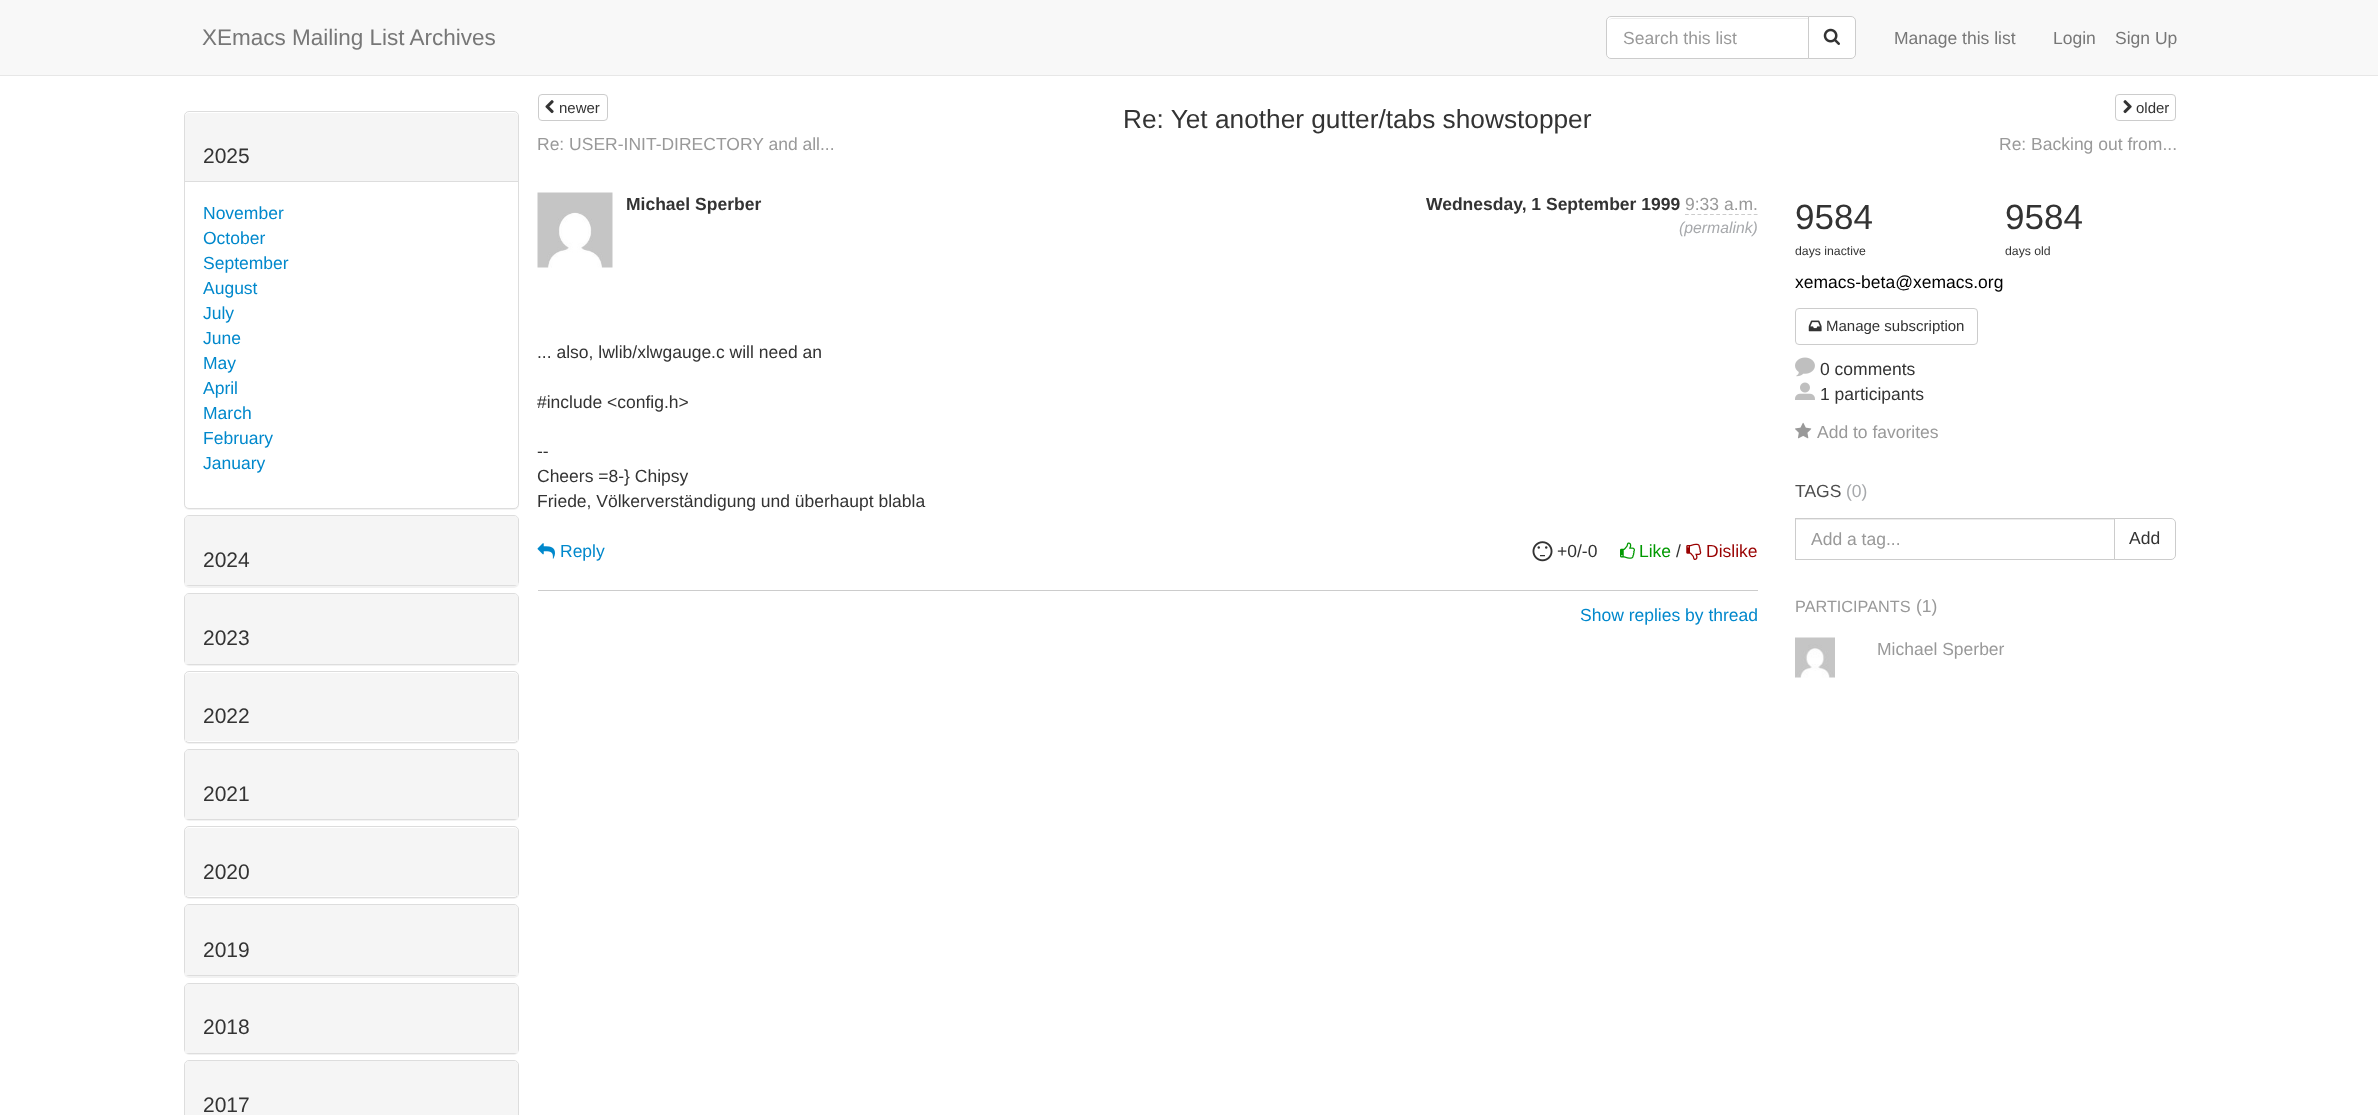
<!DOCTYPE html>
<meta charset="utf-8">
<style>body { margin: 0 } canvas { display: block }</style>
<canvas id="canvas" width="2378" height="1115"></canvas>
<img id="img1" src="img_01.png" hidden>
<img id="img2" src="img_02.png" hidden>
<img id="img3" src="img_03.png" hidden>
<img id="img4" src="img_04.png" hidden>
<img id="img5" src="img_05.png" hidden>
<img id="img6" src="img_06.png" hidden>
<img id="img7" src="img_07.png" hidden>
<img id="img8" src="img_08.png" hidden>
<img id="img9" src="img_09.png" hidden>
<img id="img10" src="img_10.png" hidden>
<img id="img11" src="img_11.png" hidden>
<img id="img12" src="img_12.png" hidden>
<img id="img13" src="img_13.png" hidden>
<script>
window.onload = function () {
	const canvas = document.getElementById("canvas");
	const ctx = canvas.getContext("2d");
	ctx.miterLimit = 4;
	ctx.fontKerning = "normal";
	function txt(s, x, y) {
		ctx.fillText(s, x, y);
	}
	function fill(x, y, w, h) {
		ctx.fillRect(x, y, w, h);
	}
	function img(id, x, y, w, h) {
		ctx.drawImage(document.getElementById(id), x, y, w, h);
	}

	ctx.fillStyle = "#FFFFFF";
	fill(0, 0, 2378, 1115);
	ctx.fillStyle = "#F8F8F8";
	fill(0, 0, 2378, 75);
	ctx.fillStyle = "#E7E7E7";
	fill(0, 75, 2378, 1);
	ctx.fillStyle = "#FFFFFF";
	ctx.beginPath();
	ctx.roundRect(1606, 16, 203, 43, [5, 0, 0, 5]);
	ctx.fill();
	ctx.fillStyle = "#ECECEC";
	ctx.beginPath();
	ctx.moveTo(1611, 19);
	ctx.lineTo(1808, 19);
	ctx.lineTo(1808, 18);
	ctx.lineTo(1612, 18);
	ctx.bezierCurveTo(1611, 18, 1609, 19, 1609, 20);
	ctx.closePath();
	ctx.fill();
	ctx.beginPath();
	ctx.roundRect(1606.5, 16.5, 202, 42, [4.5, 0, 0, 4.5]);
	ctx.strokeStyle = "#CCCCCC";
	ctx.stroke();
	ctx.fillStyle = "#FFFFFF";
	ctx.beginPath();
	ctx.roundRect(1808.5, 16.5, 47, 42, [0, 4.5, 4.5, 0]);
	ctx.fill();
	ctx.stroke();
	img("img1", 1823, 28, 17, 17);
	ctx.fillStyle = "rgba(0, 0, 0, 0.05)";
	ctx.filter = "blur(0.5px)";
	ctx.beginPath();
	ctx.roundRect(184, 113, 335, 397, 5);
	ctx.fill();
	ctx.filter = "none";
	ctx.fillStyle = "#FFFFFF";
	ctx.beginPath();
	ctx.roundRect(184.5, 111.5, 334, 397, 4.5);
	ctx.fill();
	ctx.strokeStyle = "#DDDDDD";
	ctx.stroke();
	ctx.fillStyle = "#F5F5F5";
	ctx.beginPath();
	ctx.roundRect(185, 113, 333, 68, [4, 4, 0, 0]);
	ctx.fill();
	ctx.fillStyle = "#DDDDDD";
	fill(185, 181, 333, 1);
	ctx.fillStyle = "rgba(0, 0, 0, 0.05)";
	ctx.filter = "blur(0.5px)";
	ctx.beginPath();
	ctx.roundRect(184, 516, 335, 72, 5);
	ctx.fill();
	ctx.filter = "none";
	ctx.beginPath();
	ctx.roundRect(184.5, 515.5, 334, 70, 4.5);
	ctx.stroke();
	ctx.fillStyle = "#F5F5F5";
	ctx.beginPath();
	ctx.roundRect(185, 516, 333, 69, [4, 4, 0, 0]);
	ctx.fill();
	ctx.fillStyle = "rgba(0, 0, 0, 0.05)";
	ctx.filter = "blur(0.5px)";
	ctx.beginPath();
	ctx.roundRect(184, 594, 335, 72, 5);
	ctx.fill();
	ctx.filter = "none";
	ctx.beginPath();
	ctx.roundRect(184.5, 593.5, 334, 71, 4.5);
	ctx.stroke();
	ctx.fillStyle = "#F5F5F5";
	ctx.beginPath();
	ctx.roundRect(185, 594, 333, 70, [4, 4, 0, 0]);
	ctx.fill();
	ctx.fillStyle = "rgba(0, 0, 0, 0.05)";
	ctx.filter = "blur(0.5px)";
	ctx.beginPath();
	ctx.roundRect(184, 673, 335, 71, 5);
	ctx.fill();
	ctx.filter = "none";
	ctx.fillStyle = "#FFFFFF";
	ctx.beginPath();
	ctx.roundRect(184.5, 671.5, 334, 71, 4.5);
	ctx.fill();
	ctx.stroke();
	ctx.fillStyle = "#F5F5F5";
	ctx.beginPath();
	ctx.roundRect(185, 673, 333, 68, [4, 4, 0, 0]);
	ctx.fill();
	ctx.fillStyle = "rgba(0, 0, 0, 0.05)";
	ctx.filter = "blur(0.5px)";
	ctx.beginPath();
	ctx.roundRect(184, 750, 335, 71, 5);
	ctx.fill();
	ctx.filter = "none";
	ctx.beginPath();
	ctx.roundRect(184.5, 749.5, 334, 70, 4.5);
	ctx.stroke();
	ctx.fillStyle = "#F5F5F5";
	ctx.beginPath();
	ctx.roundRect(185, 750, 333, 69, [4, 4, 0, 0]);
	ctx.fill();
	ctx.fillStyle = "rgba(0, 0, 0, 0.05)";
	ctx.filter = "blur(0.5px)";
	ctx.beginPath();
	ctx.roundRect(184, 828, 335, 71, 5);
	ctx.fill();
	ctx.filter = "none";
	ctx.fillStyle = "#FFFFFF";
	ctx.beginPath();
	ctx.roundRect(184.5, 826.5, 334, 71, 4.5);
	ctx.fill();
	ctx.stroke();
	ctx.fillStyle = "#F5F5F5";
	ctx.beginPath();
	ctx.roundRect(185, 828, 333, 68, [4, 4, 0, 0]);
	ctx.fill();
	ctx.fillStyle = "rgba(0, 0, 0, 0.05)";
	ctx.filter = "blur(0.5px)";
	ctx.beginPath();
	ctx.roundRect(184, 905, 335, 73, 5);
	ctx.fill();
	ctx.filter = "none";
	ctx.beginPath();
	ctx.roundRect(184.5, 904.5, 334, 71, 4.5);
	ctx.stroke();
	ctx.fillStyle = "#F5F5F5";
	ctx.beginPath();
	ctx.roundRect(185, 905, 333, 70, [4, 4, 0, 0]);
	ctx.fill();
	ctx.fillStyle = "rgba(0, 0, 0, 0.05)";
	ctx.filter = "blur(0.5px)";
	ctx.beginPath();
	ctx.roundRect(184, 984, 335, 71, 5);
	ctx.fill();
	ctx.filter = "none";
	ctx.beginPath();
	ctx.roundRect(184.5, 983.5, 334, 70, 4.5);
	ctx.stroke();
	ctx.fillStyle = "#F5F5F5";
	ctx.beginPath();
	ctx.roundRect(185, 984, 333, 69, [4, 4, 0, 0]);
	ctx.fill();
	ctx.beginPath();
	ctx.roundRect(184.5, 1060.5, 334, 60, 4.5);
	ctx.stroke();
	ctx.beginPath();
	ctx.moveTo(189, 1061);
	ctx.lineTo(514, 1061);
	ctx.bezierCurveTo(516, 1061, 518, 1063, 518, 1065);
	ctx.lineTo(518, 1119);
	ctx.lineTo(185, 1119);
	ctx.lineTo(185, 1065);
	ctx.bezierCurveTo(185, 1063, 187, 1061, 189, 1061);
	ctx.closePath();
	ctx.fill();
	ctx.beginPath();
	ctx.roundRect(538.5, 94.5, 69, 26, 3.5);
	ctx.strokeStyle = "#CCCCCC";
	ctx.stroke();
	img("img2", 545, 100, 9, 14);
	ctx.beginPath();
	ctx.roundRect(2115.5, 94.5, 60, 26, 3.5);
	ctx.stroke();
	img("img3", 2123, 100, 9, 14);
	img("img4", 537, 192, 76, 76);
	ctx.beginPath();
	ctx.moveTo(1685, 214.5);
	ctx.lineTo(1757.5, 214.5);
	ctx.lineWidth = 1.2;
	ctx.setLineDash([3.75, 2.5]);
	ctx.stroke();
	ctx.fillStyle = "#CCCCCC";
	fill(538, 590, 1220, 1);
	img("img5", 537, 543, 18, 16);
	img("img6", 1532, 541, 21, 21);
	img("img7", 1620, 542, 15, 17);
	img("img8", 1686, 543, 16, 17);
	ctx.beginPath();
	ctx.roundRect(1795.5, 308.5, 182, 36, 3.5);
	ctx.lineWidth = 1;
	ctx.setLineDash([]);
	ctx.stroke();
	img("img9", 1808, 320, 14, 12);
	img("img10", 1795, 357, 20, 20);
	img("img11", 1795, 382, 20, 18);
	img("img12", 1795, 422, 17, 17);
	ctx.fillStyle = "#ECECEC";
	fill(1796, 519, 318, 1);
	ctx.strokeRect(1795.5, 518.5, 319, 41);
	ctx.fillStyle = "#FFFFFF";
	ctx.beginPath();
	ctx.roundRect(2114.5, 518.5, 61, 41, [0, 4.5, 4.5, 0]);
	ctx.fill();
	ctx.stroke();
	img("img13", 1795, 637, 40, 41);
	ctx.font = "22.5px Liberation Sans";
	ctx.fillStyle = "#777777";
	txt("XEmacs Mailing List Archives", 202, 45);
	ctx.font = "17.5px Liberation Sans";
	ctx.fillStyle = "#999999";
	txt("Search this list", 1623, 44);
	ctx.fillStyle = "#777777";
	txt("Manage this list", 1894, 44);
	txt("Login", 2053, 44);
	txt("Sign Up", 2115, 44);
	ctx.font = "21px Liberation Sans";
	ctx.fillStyle = "#333333";
	txt("2025", 203, 163);
	ctx.font = "17.5px Liberation Sans";
	ctx.fillStyle = "#0088CC";
	txt("November", 203, 219);
	txt("October", 203, 244);
	txt("September", 203, 269);
	txt("August", 203, 294);
	txt("July", 203, 319);
	txt("June", 203, 344);
	txt("May", 203, 369);
	txt("April", 203, 394);
	txt("March", 203, 419);
	txt("February", 203, 444);
	txt("January", 203, 469);
	ctx.font = "21px Liberation Sans";
	ctx.fillStyle = "#333333";
	txt("2024", 203, 567);
	txt("2023", 203, 645);
	txt("2022", 203, 723);
	txt("2021", 203, 801);
	txt("2020", 203, 879);
	txt("2019", 203, 957);
	txt("2018", 203, 1034);
	txt("2017", 203, 1112);
	ctx.font = "15px Liberation Sans";
	txt("newer", 559, 113);
	ctx.font = "26.25px Liberation Sans";
	txt("Re: Yet another gutter/tabs showstopper", 1123, 128);
	ctx.font = "15px Liberation Sans";
	txt("older", 2136, 113);
	ctx.font = "17.5px Liberation Sans";
	ctx.fillStyle = "#999999";
	txt("Re: USER-INIT-DIRECTORY and all...", 537, 150);
	txt("Re: Backing out from...", 1999, 150);
	ctx.font = "bold 17.5px Liberation Sans";
	ctx.fillStyle = "#333333";
	txt("Michael Sperber", 626, 210);
	txt("Wednesday, 1 September 1999", 1426, 210);
	ctx.font = "17.5px Liberation Sans";
	ctx.fillStyle = "#999999";
	txt("9:33 a.m.", 1685, 210);
	ctx.font = "italic 15.75px Liberation Sans";
	ctx.fillStyle = "#A7A9AC";
	txt("(permalink)", 1679, 233);
	ctx.font = "17.5px Liberation Sans";
	ctx.fillStyle = "#333333";
	txt("... also, lwlib/xlwgauge.c will need an", 537, 358);
	txt("#include <config.h>", 537, 408);
	txt("--", 537, 457);
	txt("Cheers =8-} Chipsy", 537, 482);
	txt("Friede, Völkerverständigung und überhaupt blabla", 537, 507);
	ctx.fillStyle = "#0088CC";
	txt("Reply", 560, 557);
	ctx.fillStyle = "#333333";
	txt("+0/-0", 1557, 557);
	ctx.fillStyle = "#009900";
	txt("Like", 1639, 557);
	ctx.fillStyle = "#333333";
	txt("/", 1676, 557);
	ctx.fillStyle = "#990000";
	txt("Dislike", 1706, 557);
	ctx.fillStyle = "#0088CC";
	txt("Show replies by thread", 1580, 621);
	ctx.font = "35px Liberation Sans";
	ctx.fillStyle = "#333333";
	txt("9584", 1795, 229);
	ctx.font = "12.25px Liberation Sans";
	txt("days inactive", 1795, 255);
	ctx.font = "35px Liberation Sans";
	txt("9584", 2005, 229);
	ctx.font = "12.25px Liberation Sans";
	txt("days old", 2005, 255);
	ctx.font = "17.5px Liberation Sans";
	ctx.fillStyle = "#000000";
	txt("xemacs-beta@xemacs.org", 1795, 288);
	ctx.font = "15px Liberation Sans";
	ctx.fillStyle = "#333333";
	txt("Manage subscription", 1826, 331);
	ctx.font = "17.5px Liberation Sans";
	txt("0 comments", 1820, 375);
	txt("1 participants", 1820, 400);
	ctx.fillStyle = "#999999";
	txt("Add to favorites", 1817, 438);
	ctx.fillStyle = "#4D4D4D";
	txt("TAGS", 1795, 497);
	ctx.fillStyle = "#A7A9AC";
	txt("(0)", 1846, 497);
	ctx.fillStyle = "#999999";
	txt("Add a tag...", 1811, 545);
	ctx.fillStyle = "#333333";
	txt("Add", 2129, 544);
	ctx.font = "16.25px Liberation Sans";
	ctx.fillStyle = "#999999";
	txt("PARTICIPANTS", 1795, 612);
	ctx.font = "17.5px Liberation Sans";
	txt("(1)", 1916, 612);
	txt("Michael Sperber", 1877, 655);
};
</script>
